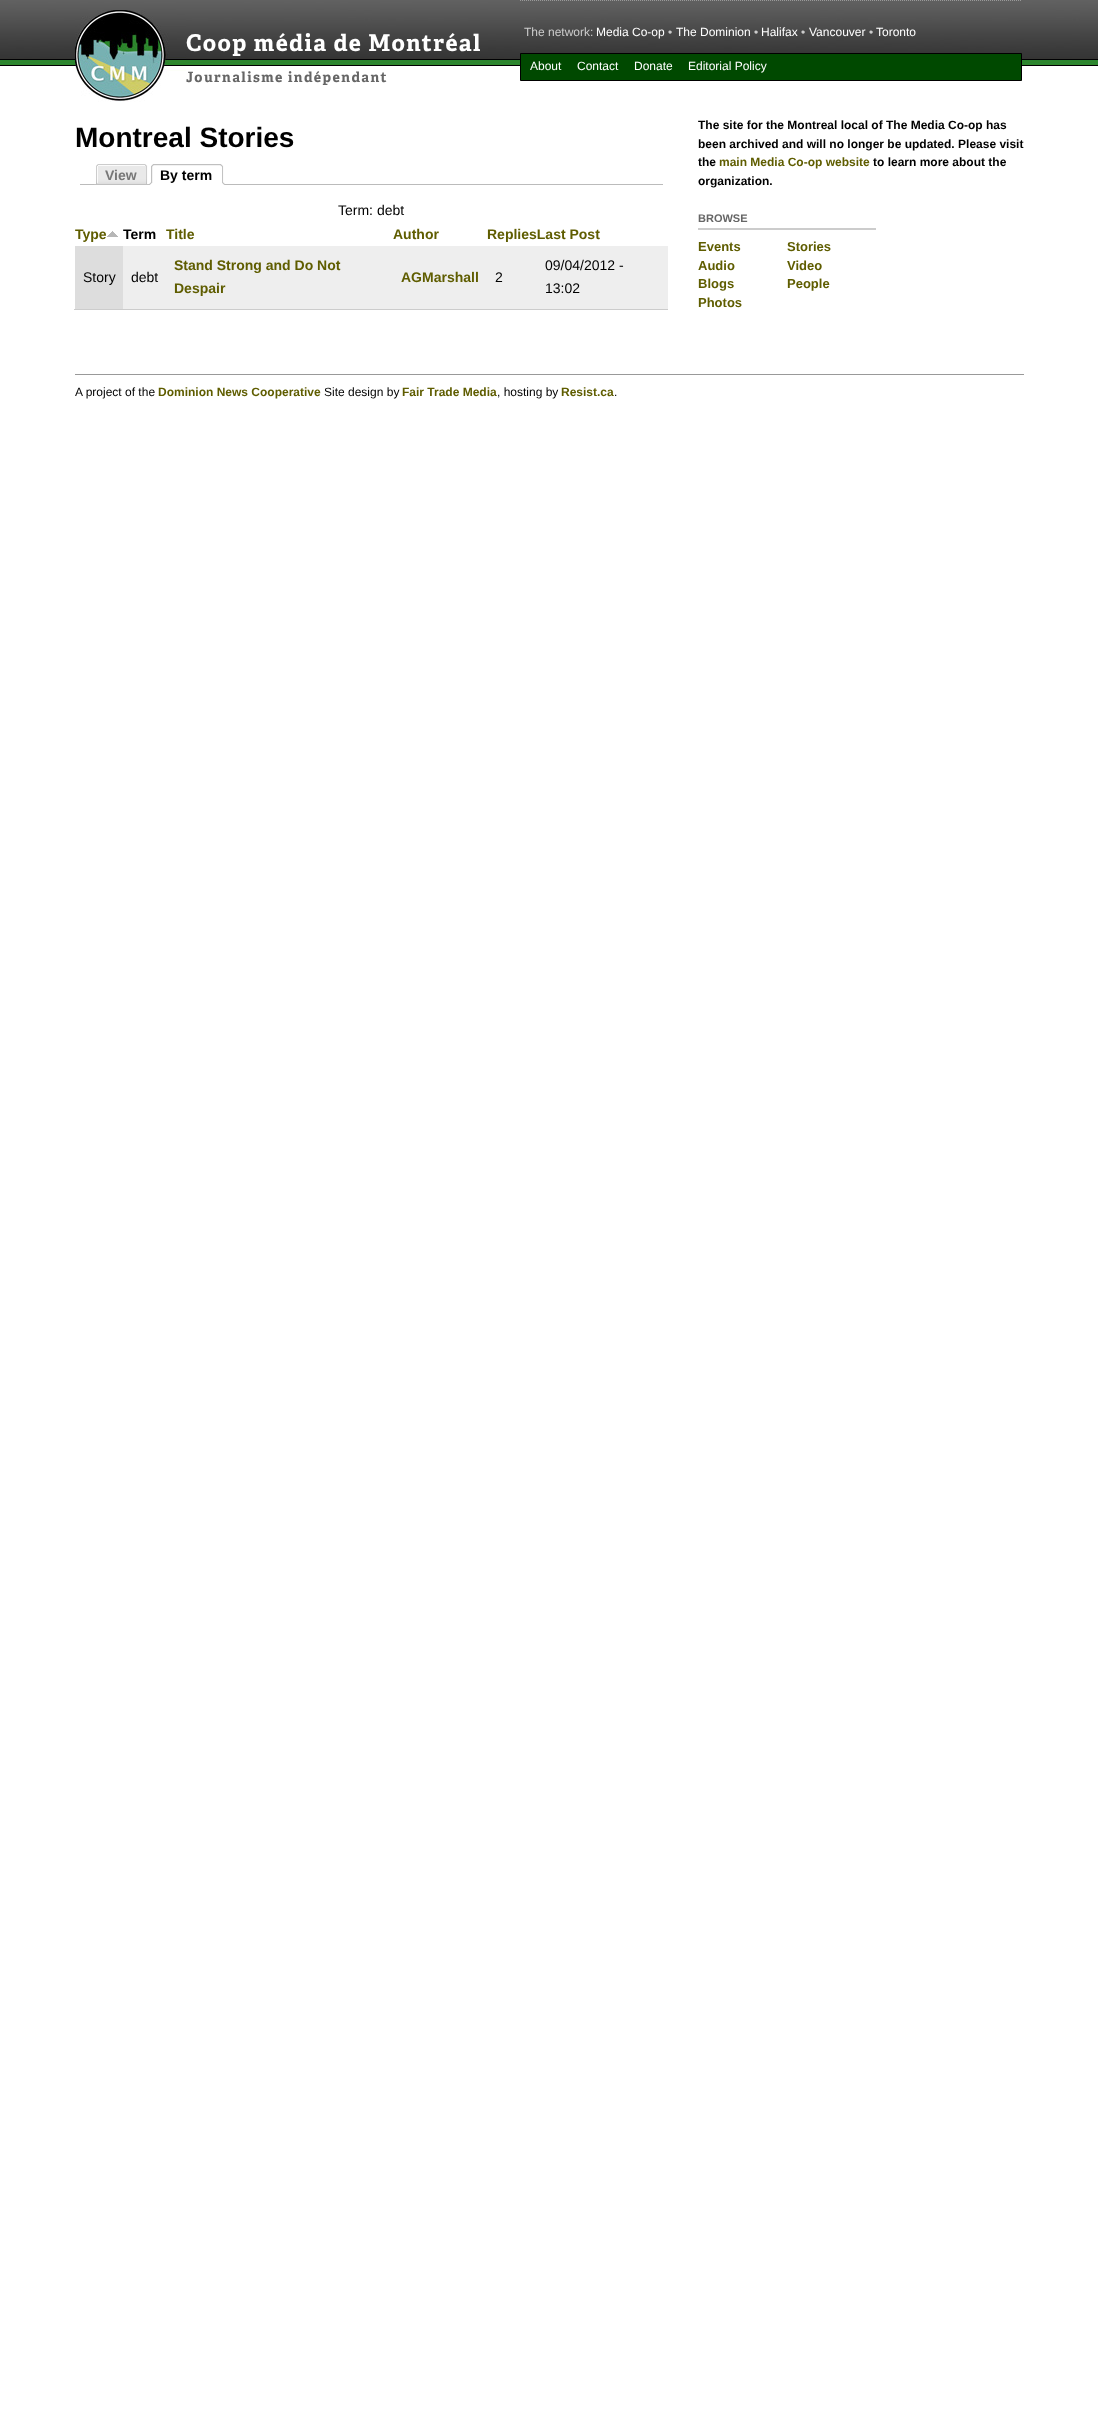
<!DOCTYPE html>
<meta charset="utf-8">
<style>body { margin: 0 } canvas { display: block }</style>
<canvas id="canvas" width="1098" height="2436"></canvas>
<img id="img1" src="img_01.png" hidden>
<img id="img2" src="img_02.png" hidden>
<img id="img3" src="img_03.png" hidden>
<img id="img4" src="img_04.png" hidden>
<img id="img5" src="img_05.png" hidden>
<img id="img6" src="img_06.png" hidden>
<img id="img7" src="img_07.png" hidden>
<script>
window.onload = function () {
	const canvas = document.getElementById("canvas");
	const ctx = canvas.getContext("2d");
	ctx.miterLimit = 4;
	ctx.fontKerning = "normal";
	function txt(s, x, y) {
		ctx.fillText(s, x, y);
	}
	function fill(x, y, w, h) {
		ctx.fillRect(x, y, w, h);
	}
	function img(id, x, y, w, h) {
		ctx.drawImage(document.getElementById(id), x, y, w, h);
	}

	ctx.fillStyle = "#FFFFFF";
	fill(0, 0, 1098, 2436);
	img("img1", 0, 0, 1098, 66);
	img("img2", 75, 10, 111, 92);
	ctx.beginPath();
	ctx.moveTo(520, 0.5);
	ctx.lineTo(1022, 0.5);
	ctx.strokeStyle = "#999999";
	ctx.setLineDash([1, 1]);
	ctx.stroke();
	ctx.fillStyle = "#004900";
	ctx.beginPath();
	ctx.rect(520.5, 53.5, 501, 27);
	ctx.fill();
	ctx.strokeStyle = "#000000";
	ctx.setLineDash([]);
	ctx.stroke();
	ctx.fillStyle = "#BBBBBB";
	fill(80, 184, 583, 1);
	img("img3", 94, 164, 5, 21);
	img("img4", 99, 164, 50, 21);
	img("img5", 149, 164, 5, 21);
	img("img6", 154, 164, 71, 21);
	img("img7", 107, 231, 11, 6);
	ctx.fillStyle = "#EEEEEE";
	fill(123, 246, 545, 63);
	ctx.fillStyle = "#CCCCCC";
	fill(74, 309, 594, 1);
	ctx.fillStyle = "#DDDDDD";
	fill(75, 246, 48, 63);
	ctx.fillStyle = "#CCCCCC";
	fill(698, 228, 178, 2);
	ctx.fillStyle = "#999999";
	fill(75, 374, 949, 1);
	ctx.letterSpacing = "1.4px";
	ctx.font = "bold 23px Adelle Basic";
	ctx.fillStyle = "#FFFFFF";
	txt("Coop média de Montréal", 186, 51);
	ctx.font = "bold 14px Adelle Basic";
	ctx.fillStyle = "#666666";
	txt("Journalisme indépendant", 186, 82);
	ctx.letterSpacing = "0px";
	ctx.font = "12px Liberation Sans";
	ctx.fillStyle = "#CCCCCC";
	txt("The network:", 524, 36);
	ctx.fillStyle = "#FFFFFF";
	txt("Media Co-op", 596, 36);
	ctx.fillStyle = "#CCCCCC";
	txt("•", 668, 36);
	ctx.fillStyle = "#FFFFFF";
	txt("The Dominion", 676, 36);
	ctx.fillStyle = "#CCCCCC";
	txt("•", 754, 36);
	ctx.fillStyle = "#FFFFFF";
	txt("Halifax", 761, 36);
	ctx.fillStyle = "#CCCCCC";
	txt("•", 801, 36);
	ctx.fillStyle = "#FFFFFF";
	txt("Vancouver", 809, 36);
	ctx.fillStyle = "#CCCCCC";
	txt("•", 869, 36);
	ctx.fillStyle = "#FFFFFF";
	txt("Toronto", 876, 36);
	txt("About", 530, 70);
	txt("Contact", 577, 70);
	txt("Donate", 634, 70);
	txt("Editorial Policy", 688, 70);
	ctx.font = "bold 28px Liberation Sans";
	ctx.fillStyle = "#000000";
	txt("Montreal Stories", 75, 147);
	ctx.font = "bold 14px Liberation Sans";
	ctx.fillStyle = "#777777";
	txt("View", 105, 180);
	ctx.fillStyle = "#000000";
	txt("By term", 160, 180);
	ctx.font = "14px Liberation Sans";
	txt("Term: debt", 338, 215);
	ctx.font = "bold 14px Liberation Sans";
	ctx.fillStyle = "#5F5D00";
	txt("Type", 75, 239);
	ctx.fillStyle = "#000000";
	txt("Term", 123, 239);
	ctx.fillStyle = "#5F5D00";
	txt("Title", 166, 239);
	txt("Author", 393, 239);
	txt("RepliesLast Post", 487, 239);
	ctx.font = "14px Liberation Sans";
	ctx.fillStyle = "#000000";
	txt("Story", 83, 282);
	txt("debt", 131, 282);
	ctx.font = "bold 14px Liberation Sans";
	ctx.fillStyle = "#5F5D00";
	txt("Stand Strong and Do Not", 174, 270);
	txt("Despair", 174, 293);
	txt("AGMarshall", 401, 282);
	ctx.font = "14px Liberation Sans";
	ctx.fillStyle = "#000000";
	txt("2", 495, 282);
	txt("09/04/2012 -", 545, 270);
	txt("13:02", 545, 293);
	ctx.font = "bold 12px Liberation Sans";
	txt("The site for the Montreal local of The Media Co-op has", 698, 129);
	txt("been archived and will no longer be updated. Please visit", 698, 148);
	txt("the", 698, 166);
	ctx.fillStyle = "#5F5D00";
	txt("main Media Co-op website", 719, 166);
	ctx.fillStyle = "#000000";
	txt("to learn more about the", 873, 166);
	txt("organization.", 698, 185);
	ctx.font = "bold 11px Liberation Sans";
	ctx.fillStyle = "#666666";
	txt("BROWSE", 698, 222);
	ctx.font = "bold 13px Liberation Sans";
	ctx.fillStyle = "#5F5D00";
	txt("Events", 698, 251);
	txt("Stories", 787, 251);
	txt("Audio", 698, 270);
	txt("Video", 787, 270);
	txt("Blogs", 698, 288);
	txt("People", 787, 288);
	txt("Photos", 698, 307);
	ctx.font = "12px Liberation Sans";
	ctx.fillStyle = "#000000";
	txt("A project of the", 75, 396);
	ctx.font = "bold 12px Liberation Sans";
	ctx.fillStyle = "#5F5D00";
	txt("Dominion News Cooperative", 158, 396);
	ctx.font = "12px Liberation Sans";
	ctx.fillStyle = "#000000";
	txt("Site design by", 324, 396);
	ctx.font = "bold 12px Liberation Sans";
	ctx.fillStyle = "#5F5D00";
	txt("Fair Trade Media", 402, 396);
	ctx.font = "12px Liberation Sans";
	ctx.fillStyle = "#000000";
	txt(", hosting by", 497, 396);
	ctx.font = "bold 12px Liberation Sans";
	ctx.fillStyle = "#5F5D00";
	txt("Resist.ca", 561, 396);
	ctx.font = "12px Liberation Sans";
	ctx.fillStyle = "#000000";
	txt(".", 614, 396);
};
</script>
